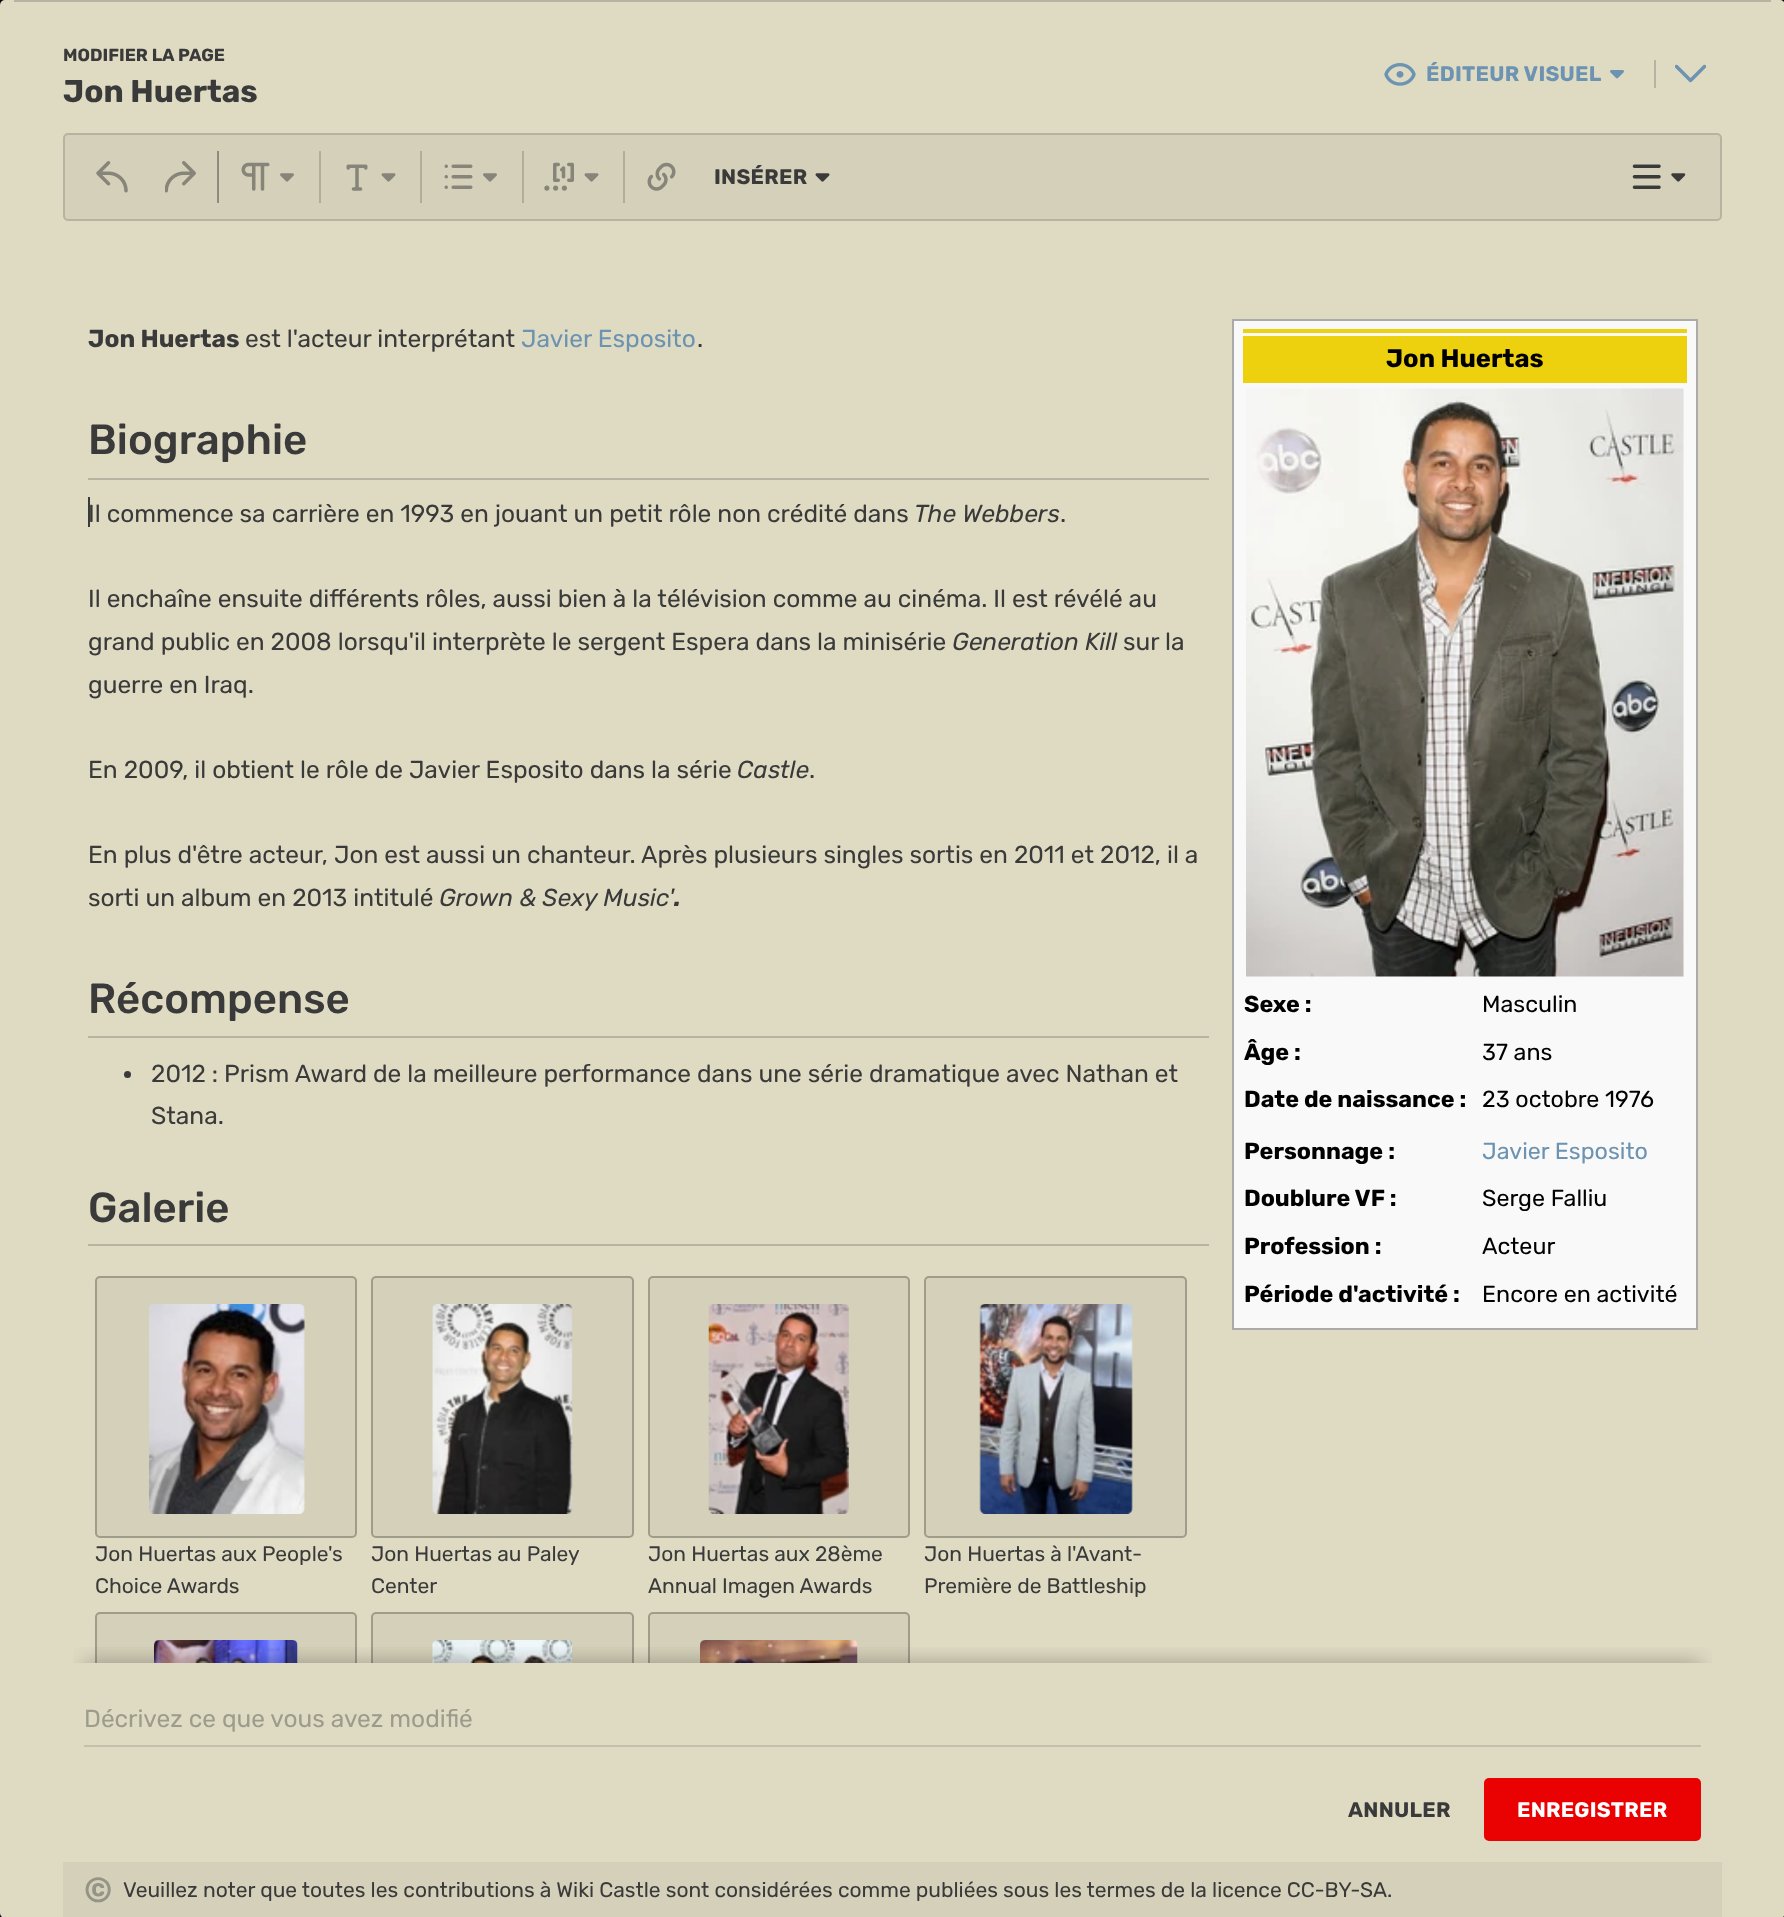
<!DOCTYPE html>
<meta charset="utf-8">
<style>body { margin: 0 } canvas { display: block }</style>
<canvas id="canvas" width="1784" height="1917"></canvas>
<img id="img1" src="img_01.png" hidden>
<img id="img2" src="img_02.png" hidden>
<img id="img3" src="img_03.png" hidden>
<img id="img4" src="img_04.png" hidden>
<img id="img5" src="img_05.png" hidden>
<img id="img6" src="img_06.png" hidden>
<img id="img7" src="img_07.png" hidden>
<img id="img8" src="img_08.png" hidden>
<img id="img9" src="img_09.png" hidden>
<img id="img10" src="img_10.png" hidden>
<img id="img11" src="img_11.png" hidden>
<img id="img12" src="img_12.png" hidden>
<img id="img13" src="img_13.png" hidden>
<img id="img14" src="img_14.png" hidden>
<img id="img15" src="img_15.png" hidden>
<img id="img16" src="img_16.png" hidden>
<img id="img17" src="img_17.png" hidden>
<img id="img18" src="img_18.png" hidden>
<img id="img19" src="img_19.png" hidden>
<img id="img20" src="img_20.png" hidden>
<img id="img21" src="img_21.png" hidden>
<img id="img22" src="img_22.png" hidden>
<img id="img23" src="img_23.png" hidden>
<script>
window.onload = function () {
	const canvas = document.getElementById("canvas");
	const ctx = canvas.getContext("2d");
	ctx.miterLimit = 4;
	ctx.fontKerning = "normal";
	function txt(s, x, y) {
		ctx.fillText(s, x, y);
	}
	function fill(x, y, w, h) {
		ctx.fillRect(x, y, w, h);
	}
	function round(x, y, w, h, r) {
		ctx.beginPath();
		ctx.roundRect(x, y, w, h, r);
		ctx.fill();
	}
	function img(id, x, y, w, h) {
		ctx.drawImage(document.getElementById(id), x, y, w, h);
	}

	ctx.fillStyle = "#000000";
	fill(0, 0, 1784, 1917);
	ctx.fillStyle = "#DFDBC3";
	round(0, 0, 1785, 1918, 5);
	img("img1", 1384, 63, 32, 23);
	img("img2", 1610, 70, 14, 9);
	ctx.fillStyle = "#B6B3A1";
	fill(1654, 60, 2, 28);
	img("img3", 1675, 64, 31, 19);
	ctx.fillStyle = "#D4D0B9";
	ctx.beginPath();
	ctx.roundRect(64, 134, 1657, 86, 4);
	ctx.fill();
	ctx.strokeStyle = "#B6B3A1";
	ctx.lineWidth = 2;
	ctx.stroke();
	ctx.fillStyle = "#8D8B7F";
	fill(217, 151, 2, 52);
	img("img4", 96, 161, 32, 32);
	img("img5", 165, 161, 31, 32);
	ctx.fillStyle = "#B1AE9C";
	fill(319, 151, 2, 52);
	img("img6", 241, 162, 29, 29);
	img("img7", 280, 173, 14, 9);
	fill(420, 151, 2, 52);
	img("img8", 346, 164, 22, 27);
	img("img9", 381, 173, 15, 9);
	fill(522, 151, 2, 52);
	img("img10", 444, 164, 29, 25);
	img("img7", 483, 173, 14, 9);
	fill(623, 151, 2, 52);
	img("img11", 544, 162, 30, 29);
	img("img9", 584, 173, 15, 9);
	img("img12", 647, 162, 29, 29);
	img("img13", 815, 173, 15, 9);
	img("img14", 1632, 164, 29, 25);
	img("img15", 1671, 173, 15, 9);
	ctx.fillStyle = "#B6B3A1";
	fill(88, 478, 1121, 2);
	ctx.fillStyle = "#F9F9F9";
	ctx.beginPath();
	ctx.rect(1233, 320, 464, 1009);
	ctx.fill();
	ctx.strokeStyle = "#AAAAAA";
	ctx.stroke();
	ctx.fillStyle = "#EDD00E";
	fill(1243, 329, 444, 4);
	fill(1243, 336, 444, 47);
	img("img16", 1246, 388, 438, 589);
	ctx.fillStyle = "#B6B3A1";
	fill(88, 1036, 1121, 2);
	ctx.fillStyle = "#3A3A3A";
	ctx.beginPath();
	ctx.arc(127.5, 1074.5, 3.5, 0, Math.PI * 2);
	ctx.fill();
	ctx.fillStyle = "#B6B3A1";
	fill(88, 1244, 1121, 2);
	ctx.fillStyle = "#D4D0B9";
	round(95, 1276, 262, 262, 5);
	ctx.beginPath();
	ctx.roundRect(96, 1277, 260, 260, 4);
	ctx.strokeStyle = "rgba(0, 0, 0, 0.25)";
	ctx.stroke();
	img("img17", 149, 1304, 156, 210);
	round(371, 1276, 263, 262, 5);
	ctx.beginPath();
	ctx.roundRect(372, 1277, 261, 260, 4);
	ctx.stroke();
	img("img18", 432, 1304, 141, 210);
	round(648, 1276, 262, 262, 5);
	ctx.beginPath();
	ctx.roundRect(649, 1277, 260, 260, 4);
	ctx.stroke();
	img("img19", 708, 1304, 141, 210);
	round(924, 1276, 263, 262, 5);
	ctx.beginPath();
	ctx.roundRect(925, 1277, 261, 260, 4);
	ctx.stroke();
	img("img20", 979, 1304, 154, 210);
	ctx.beginPath();
	ctx.roundRect(95, 1612, 262, 51, [5, 5, 0, 0]);
	ctx.fill();
	ctx.save();
	ctx.beginPath();
	ctx.rect(63, 221, 1659, 1442);
	ctx.clip();
	ctx.beginPath();
	ctx.roundRect(96, 1613, 260, 260, 4);
	ctx.stroke();
	ctx.restore();
	img("img21", 154, 1640, 144, 23);
	ctx.beginPath();
	ctx.roundRect(371, 1612, 263, 51, [5, 5, 0, 0]);
	ctx.fill();
	ctx.save();
	ctx.beginPath();
	ctx.rect(63, 221, 1659, 1442);
	ctx.clip();
	ctx.beginPath();
	ctx.roundRect(372, 1613, 261, 260, 4);
	ctx.stroke();
	ctx.restore();
	img("img22", 432, 1640, 141, 23);
	ctx.beginPath();
	ctx.roundRect(648, 1612, 262, 51, [5, 5, 0, 0]);
	ctx.fill();
	ctx.save();
	ctx.beginPath();
	ctx.rect(63, 221, 1659, 1442);
	ctx.clip();
	ctx.beginPath();
	ctx.roundRect(649, 1613, 260, 260, 4);
	ctx.stroke();
	ctx.restore();
	img("img23", 700, 1640, 158, 23);
	ctx.fillStyle = "#3A3A3A";
	fill(88, 497, 2, 30);
	ctx.save();
	ctx.beginPath();
	ctx.rect(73, 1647, 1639, 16);
	ctx.clip();
	ctx.fillStyle = "rgba(0, 0, 0, 0.3)";
	ctx.filter = "blur(10.5px)";
	ctx.beginPath();
	ctx.rect(84, 1663, 1617, 213);
	ctx.fill();
	ctx.filter = "none";
	ctx.restore();
	ctx.fillStyle = "#B6B3A1";
	fill(14, 0, 1757, 2);
	ctx.fillStyle = "#C2BFAB";
	fill(84, 1745, 1617, 2);
	ctx.fillStyle = "#EA0101";
	ctx.beginPath();
	ctx.roundRect(1485, 1779, 215, 61, 4);
	ctx.fill();
	ctx.strokeStyle = "#EA0101";
	ctx.stroke();
	ctx.fillStyle = "#D4D0B9";
	fill(63, 1862, 1659, 55);
	ctx.font = "bold 17.5px Rubik";
	ctx.fillStyle = "#3A3A3A";
	txt("MODIFIER LA PAGE", 63, 61);
	ctx.font = "bold 31.5px Rubik";
	txt("Jon Huertas", 63, 102);
	ctx.letterSpacing = "0.25px";
	ctx.font = "bold 21px Rubik";
	ctx.fillStyle = "#6C93B1";
	txt("ÉDITEUR VISUEL", 1426, 81);
	ctx.fillStyle = "#3A3A3A";
	txt("INSÉRER", 714, 184);
	ctx.letterSpacing = "0px";
	ctx.font = "bold 24.5px Rubik";
	txt("Jon Huertas", 88, 347);
	ctx.font = "24.5px Rubik";
	txt("est l'acteur interprétant", 245, 347);
	ctx.fillStyle = "#6C93B1";
	txt("Javier Esposito", 521, 347);
	ctx.fillStyle = "#3A3A3A";
	txt(".", 697, 347);
	ctx.font = "500 42px Rubik";
	txt("Biographie", 88, 454);
	ctx.font = "bold 25.5px Rubik";
	ctx.fillStyle = "#000000";
	txt("Jon Huertas", 1386, 367);
	ctx.font = "bold 23.25px Rubik";
	txt("Sexe :", 1244, 1012);
	ctx.font = "23.25px Rubik";
	txt("Masculin", 1482, 1012);
	ctx.font = "bold 23.25px Rubik";
	txt("Âge :", 1244, 1060);
	ctx.font = "23.25px Rubik";
	txt("37 ans", 1482, 1060);
	ctx.font = "bold 23.25px Rubik";
	txt("Date de naissance :", 1244, 1107);
	ctx.font = "23.25px Rubik";
	txt("23 octobre 1976", 1482, 1107);
	ctx.font = "bold 23.25px Rubik";
	txt("Personnage :", 1244, 1159);
	ctx.font = "23.25px Rubik";
	ctx.fillStyle = "#6C93B1";
	txt("Javier Esposito", 1482, 1159);
	ctx.font = "bold 23.25px Rubik";
	ctx.fillStyle = "#000000";
	txt("Doublure VF :", 1244, 1206);
	ctx.font = "23.25px Rubik";
	txt("Serge Falliu", 1482, 1206);
	ctx.font = "bold 23.25px Rubik";
	txt("Profession :", 1244, 1254);
	ctx.font = "23.25px Rubik";
	txt("Acteur", 1482, 1254);
	ctx.font = "bold 23.25px Rubik";
	txt("Période d'activité :", 1244, 1302);
	ctx.font = "23.25px Rubik";
	txt("Encore en activité", 1482, 1302);
	ctx.font = "24.5px Rubik";
	ctx.fillStyle = "#3A3A3A";
	txt("Il commence sa carrière en 1993 en jouant un petit rôle non crédité dans", 88, 522);
	ctx.font = "italic 24.5px Rubik";
	txt("The Webbers", 914, 522);
	ctx.font = "24.5px Rubik";
	txt(".", 1060, 522);
	txt("Il enchaîne ensuite différents rôles, aussi bien à la télévision comme au cinéma. Il est révélé au", 88, 607);
	txt("grand public en 2008 lorsqu'il interprète le sergent Espera dans la minisérie", 88, 650);
	ctx.font = "italic 24.5px Rubik";
	txt("Generation Kill", 952, 650);
	ctx.font = "24.5px Rubik";
	txt("sur la", 1123, 650);
	txt("guerre en Iraq.", 88, 693);
	txt("En 2009, il obtient le rôle de Javier Esposito dans la série", 88, 778);
	ctx.font = "italic 24.5px Rubik";
	txt("Castle", 737, 778);
	ctx.font = "24.5px Rubik";
	txt(".", 809, 778);
	txt("En plus d'être acteur, Jon est aussi un chanteur. Après plusieurs singles sortis en 2011 et 2012, il a", 88, 863);
	txt("sorti un album en 2013 intitulé", 88, 906);
	ctx.font = "italic 24.5px Rubik";
	txt("Grown & Sexy Music'", 439, 906);
	ctx.font = "italic bold 24.5px Rubik";
	txt(".", 674, 906);
	ctx.font = "500 42px Rubik";
	txt("Récompense", 88, 1013);
	ctx.font = "24.5px Rubik";
	txt("2012 : Prism Award de la meilleure performance dans une série dramatique avec Nathan et", 151, 1082);
	txt("Stana.", 151, 1124);
	ctx.font = "500 42px Rubik";
	txt("Galerie", 88, 1222);
	ctx.font = "21px Rubik";
	txt("Jon Huertas aux People's", 95, 1561);
	txt("Choice Awards", 95, 1593);
	txt("Jon Huertas au Paley", 371, 1561);
	txt("Center", 371, 1593);
	txt("Jon Huertas aux 28ème", 648, 1561);
	txt("Annual Imagen Awards", 648, 1593);
	txt("Jon Huertas à l'Avant-", 924, 1561);
	txt("Première de Battleship", 924, 1593);
	ctx.font = "24.5px Rubik";
	ctx.fillStyle = "#9D9B8C";
	txt("Décrivez ce que vous avez modifié", 84, 1727);
	ctx.letterSpacing = "0.25px";
	ctx.font = "bold 21px Rubik";
	ctx.fillStyle = "#3A3A3A";
	txt("ANNULER", 1348, 1817);
	ctx.fillStyle = "#FFFFFF";
	txt("ENREGISTRER", 1517, 1817);
	ctx.letterSpacing = "0px";
	ctx.font = "bold 35px Rubik";
	ctx.fillStyle = "#969486";
	txt("©", 84, 1902);
	ctx.font = "21px Rubik";
	ctx.fillStyle = "#3A3A3A";
	txt("Veuillez noter que toutes les contributions à Wiki Castle sont considérées comme publiées sous les termes de la licence CC-BY-SA.", 123, 1897);
};
</script>
